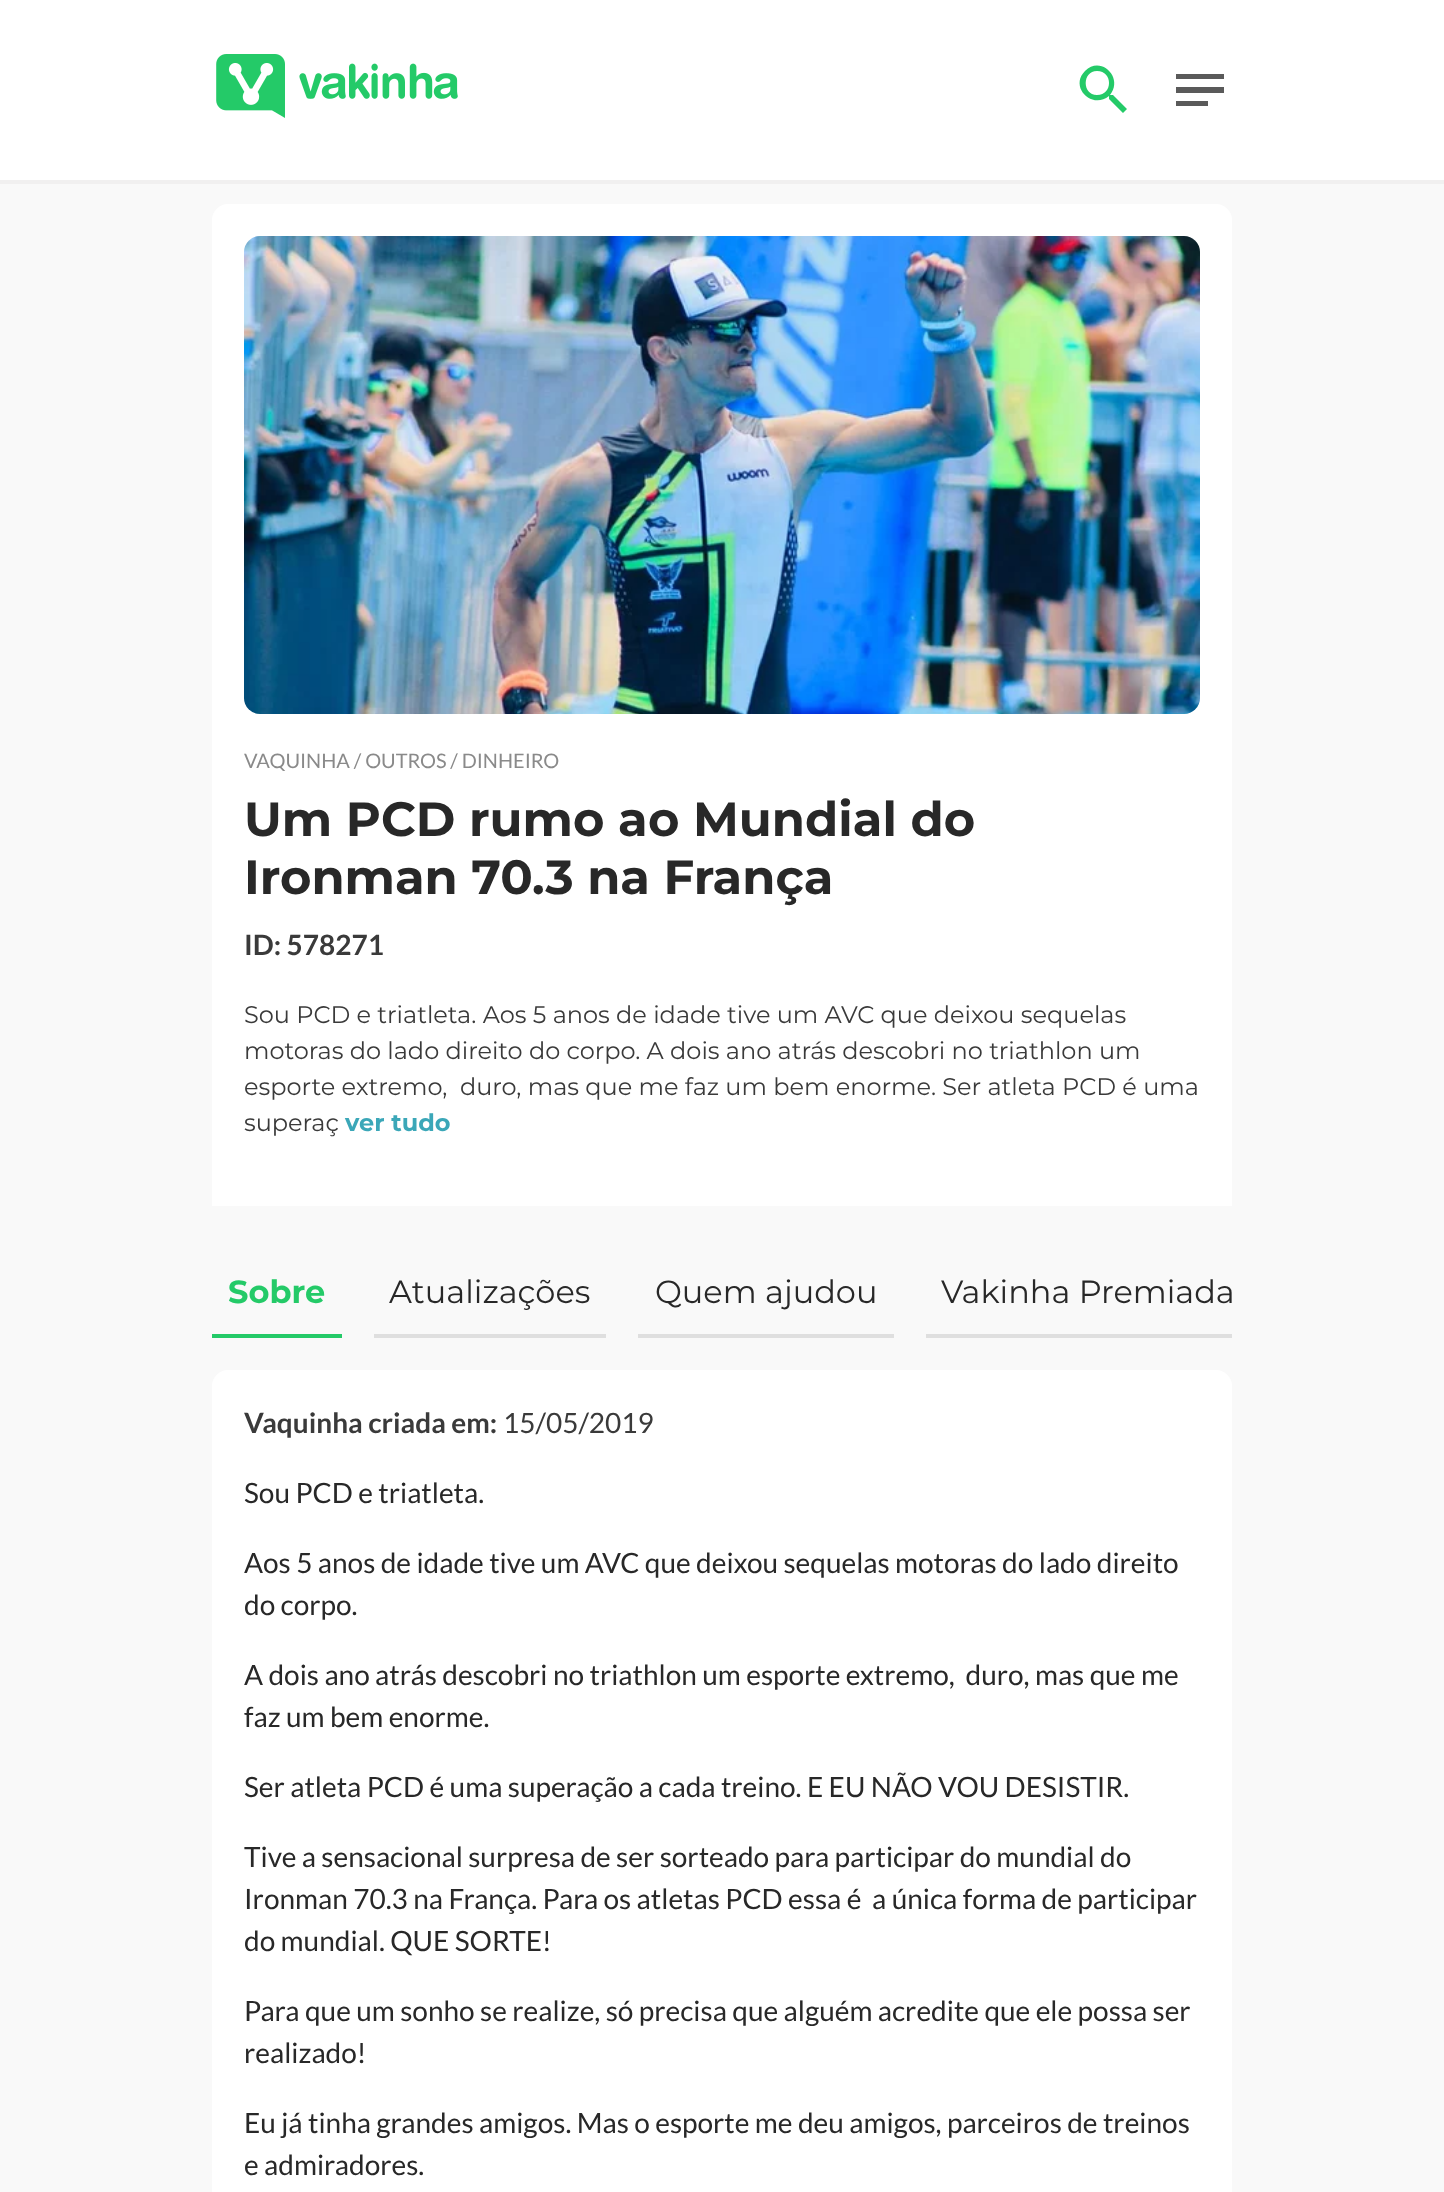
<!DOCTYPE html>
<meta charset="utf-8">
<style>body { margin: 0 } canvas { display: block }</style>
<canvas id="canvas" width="1444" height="2192"></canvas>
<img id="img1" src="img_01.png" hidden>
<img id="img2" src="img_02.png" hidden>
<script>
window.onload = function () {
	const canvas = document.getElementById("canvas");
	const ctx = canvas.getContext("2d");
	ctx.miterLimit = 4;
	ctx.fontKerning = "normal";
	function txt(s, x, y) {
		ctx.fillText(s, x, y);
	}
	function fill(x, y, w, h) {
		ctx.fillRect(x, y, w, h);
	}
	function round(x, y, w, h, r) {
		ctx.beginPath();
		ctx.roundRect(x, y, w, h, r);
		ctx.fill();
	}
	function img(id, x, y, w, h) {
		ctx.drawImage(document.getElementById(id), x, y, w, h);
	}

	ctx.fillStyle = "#F9F9F9";
	fill(0, 0, 1444, 2192);
	ctx.fillStyle = "#FFFFFF";
	fill(0, 0, 1444, 180);
	ctx.fillStyle = "#F1F0F0";
	fill(0, 180, 1444, 4);
	img("img1", 216, 54, 242, 64);
	ctx.fillStyle = "#24CA68";
	ctx.beginPath();
	ctx.moveTo(1113, 95);
	ctx.lineTo(1111, 95);
	ctx.lineTo(1110, 95);
	ctx.bezierCurveTo(1124, 78, 1101, 55, 1085, 71);
	ctx.bezierCurveTo(1069, 87, 1092, 110, 1109, 96);
	ctx.lineTo(1109, 97);
	ctx.lineTo(1109, 99);
	ctx.lineTo(1123, 113);
	ctx.lineTo(1127, 109);
	ctx.closePath();
	ctx.moveTo(1097, 95);
	ctx.bezierCurveTo(1082, 95, 1082, 71, 1097, 71);
	ctx.bezierCurveTo(1113, 71, 1113, 95, 1097, 95);
	ctx.fill();
	ctx.fillStyle = "#5A5A5A";
	ctx.beginPath();
	ctx.moveTo(1176, 106);
	ctx.lineTo(1208, 106);
	ctx.lineTo(1208, 101);
	ctx.lineTo(1176, 101);
	ctx.closePath();
	ctx.moveTo(1176, 74);
	ctx.lineTo(1176, 79);
	ctx.lineTo(1224, 79);
	ctx.lineTo(1224, 74);
	ctx.closePath();
	ctx.moveTo(1176, 93);
	ctx.lineTo(1224, 93);
	ctx.lineTo(1224, 87);
	ctx.lineTo(1176, 87);
	ctx.closePath();
	ctx.fill();
	ctx.fillStyle = "#FFFFFF";
	ctx.beginPath();
	ctx.roundRect(212, 204, 1020, 1002, [16, 16, 0, 0]);
	ctx.fill();
	img("img2", 244, 236, 956, 478);
	ctx.fillStyle = "#24CA68";
	fill(212, 1334, 130, 4);
	ctx.fillStyle = "#DFDFDF";
	fill(374, 1334, 232, 4);
	fill(638, 1334, 256, 4);
	fill(926, 1334, 306, 4);
	ctx.fillStyle = "#FFFFFF";
	round(212, 1370, 1020, 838, 16);
	ctx.font = "20px Lato";
	ctx.fillStyle = "#8A8A8A";
	txt("VAQUINHA / OUTROS / DINHEIRO", 244, 768);
	ctx.font = "bold 48px Montserrat";
	ctx.fillStyle = "#282828";
	txt("Um PCD rumo ao Mundial do", 244, 836);
	txt("Ironman 70.3 na França", 244, 894);
	ctx.font = "bold 28px Lato";
	ctx.fillStyle = "#3A3A3A";
	txt("ID: 578271", 244, 955);
	ctx.font = "24px Montserrat";
	txt("Sou PCD e triatleta. Aos 5 anos de idade tive um AVC que deixou sequelas", 244, 1023);
	txt("motoras do lado direito do corpo. A dois ano atrás descobri no triathlon um", 244, 1059);
	txt("esporte extremo,  duro, mas que me faz um bem enorme. Ser atleta PCD é uma", 244, 1095);
	txt("superaç", 244, 1131);
	ctx.font = "bold 24px Montserrat";
	ctx.fillStyle = "#3BA7B8";
	txt("ver tudo", 345, 1131);
	ctx.font = "bold 32px Montserrat";
	ctx.fillStyle = "#24CA68";
	txt("Sobre", 228, 1303);
	ctx.font = "32px Montserrat";
	ctx.fillStyle = "#282828";
	txt("Atualizações", 389, 1303);
	txt("Quem ajudou", 655, 1303);
	txt("Vakinha Premiada", 941, 1303);
	ctx.font = "bold 28px Lato";
	ctx.fillStyle = "#3A3A3A";
	txt("Vaquinha criada em:", 244, 1433);
	ctx.font = "28px Lato";
	txt("15/05/2019", 503, 1433);
	ctx.fillStyle = "#282828";
	txt("Sou PCD e triatleta.", 244, 1503);
	txt("Aos 5 anos de idade tive um AVC que deixou sequelas motoras do lado direito", 244, 1573);
	txt("do corpo.", 244, 1615);
	txt("A dois ano atrás descobri no triathlon um esporte extremo,  duro, mas que me", 244, 1685);
	txt("faz um bem enorme.", 244, 1727);
	txt("Ser atleta PCD é uma superação a cada treino. E EU NÃO VOU DESISTIR.", 244, 1797);
	txt("Tive a sensacional surpresa de ser sorteado para participar do mundial do", 244, 1867);
	txt("Ironman 70.3 na França. Para os atletas PCD essa é  a única forma de participar", 244, 1909);
	txt("do mundial. QUE SORTE!", 244, 1951);
	txt("Para que um sonho se realize, só precisa que alguém acredite que ele possa ser", 244, 2021);
	txt("realizado!", 244, 2063);
	txt("Eu já tinha grandes amigos. Mas o esporte me deu amigos, parceiros de treinos", 244, 2133);
	txt("e admiradores.", 244, 2175);
};
</script>
